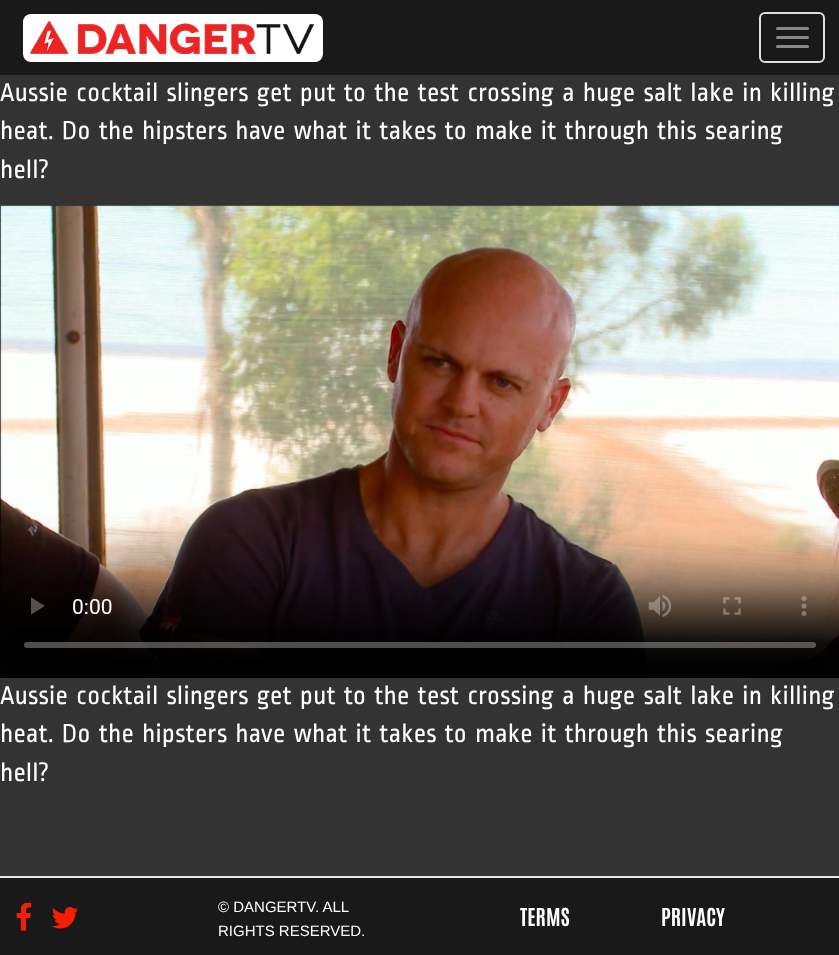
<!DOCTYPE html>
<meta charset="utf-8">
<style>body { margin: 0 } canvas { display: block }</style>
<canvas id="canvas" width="839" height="955"></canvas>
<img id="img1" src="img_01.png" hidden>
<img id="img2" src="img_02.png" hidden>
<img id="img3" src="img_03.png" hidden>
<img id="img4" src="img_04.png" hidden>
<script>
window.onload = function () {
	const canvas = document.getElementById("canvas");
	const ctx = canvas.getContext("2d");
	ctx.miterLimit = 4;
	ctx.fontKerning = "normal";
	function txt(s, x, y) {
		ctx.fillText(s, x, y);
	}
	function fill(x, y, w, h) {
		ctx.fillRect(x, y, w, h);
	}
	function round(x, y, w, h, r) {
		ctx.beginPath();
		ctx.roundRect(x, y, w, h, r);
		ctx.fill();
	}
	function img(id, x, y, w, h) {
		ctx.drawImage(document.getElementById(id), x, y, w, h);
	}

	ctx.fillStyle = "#333333";
	fill(0, 0, 839, 955);
	ctx.fillStyle = "#191919";
	fill(0, 0, 839, 75);
	ctx.fillStyle = "#FFFFFF";
	round(23, 14, 300, 48, 8);
	img("img1", 30, 21, 285, 33);
	ctx.beginPath();
	ctx.roundRect(760, 13, 64, 49, 5);
	ctx.strokeStyle = "#DDDDDD";
	ctx.lineWidth = 2;
	ctx.stroke();
	ctx.fillStyle = "#888888";
	round(776, 27, 33, 3, 1.5);
	round(776, 36, 33, 3, 1.5);
	round(776, 45, 33, 3, 1.5);
	img("img2", 0, 205, 839, 473);
	ctx.fillStyle = "#191919";
	fill(0, 878, 839, 77);
	ctx.fillStyle = "#E5E5E5";
	fill(0, 876, 839, 2);
	img("img3", 16, 902, 16, 29);
	img("img4", 52, 907, 26, 22);
	ctx.font = "27px Ropa Sans";
	ctx.fillStyle = "#FFFFFF";
	txt("Aussie cocktail slingers get put to the test crossing a huge salt lake in killing", 0, 101);
	txt("heat. Do the hipsters have what it takes to make it through this searing", 0, 139);
	txt("hell?", 0, 178);
	txt("Aussie cocktail slingers get put to the test crossing a huge salt lake in killing", 0, 704);
	txt("heat. Do the hipsters have what it takes to make it through this searing", 0, 742);
	txt("hell?", 0, 781);
	ctx.font = "15px Liberation Sans";
	txt("© DANGERTV. ALL", 218, 912);
	txt("RIGHTS RESERVED.", 218, 936);
	ctx.font = "bold 21px Antonio";
	txt("TERMS", 520, 926);
	txt("PRIVACY", 661, 926);
};
</script>
